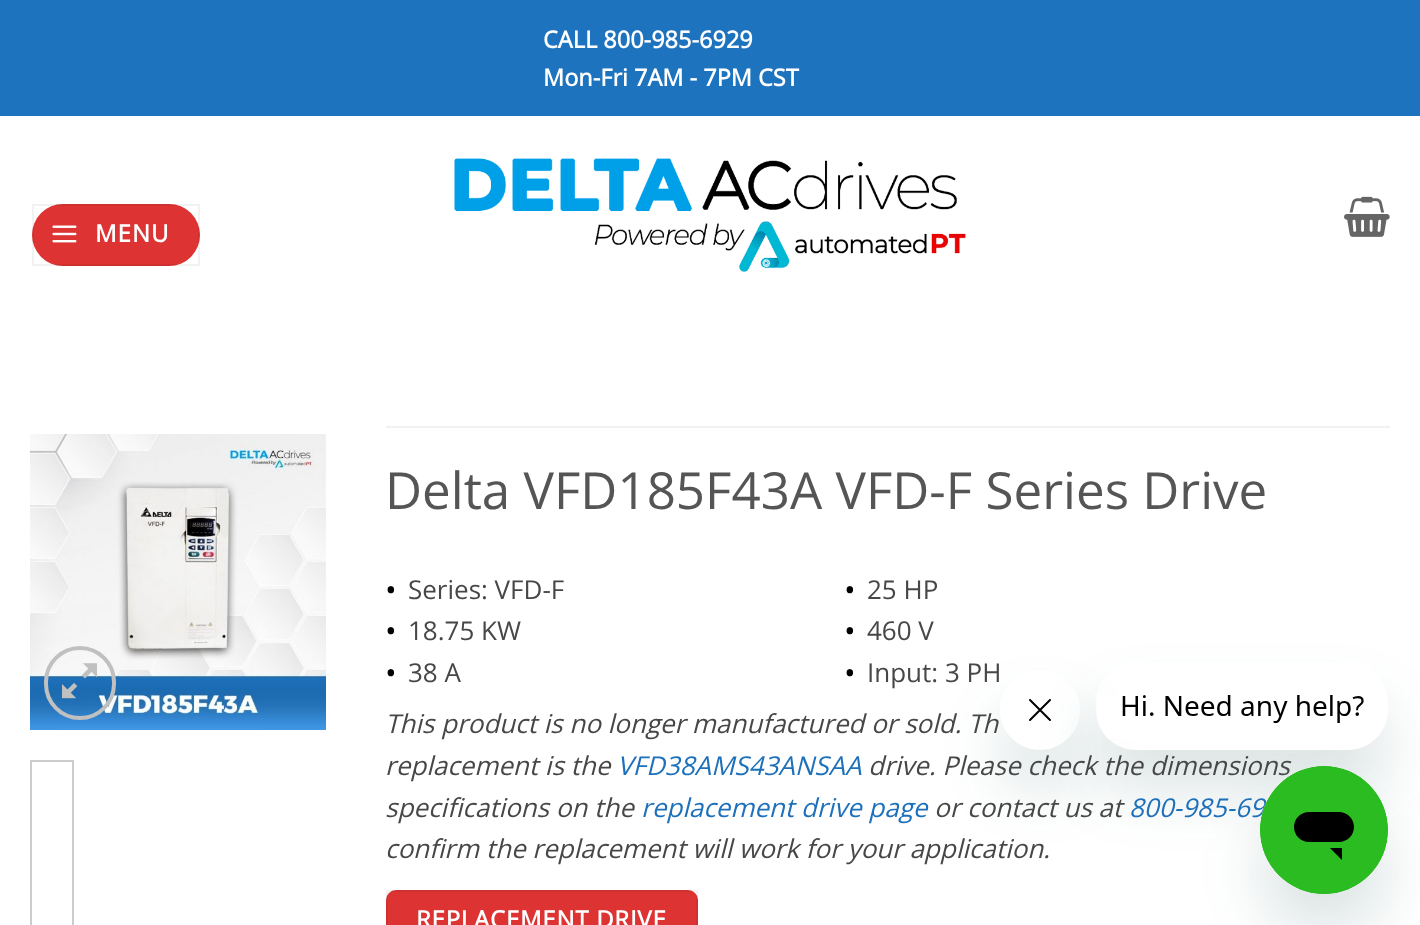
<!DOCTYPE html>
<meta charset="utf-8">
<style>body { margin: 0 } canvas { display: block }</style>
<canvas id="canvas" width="1420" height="925"></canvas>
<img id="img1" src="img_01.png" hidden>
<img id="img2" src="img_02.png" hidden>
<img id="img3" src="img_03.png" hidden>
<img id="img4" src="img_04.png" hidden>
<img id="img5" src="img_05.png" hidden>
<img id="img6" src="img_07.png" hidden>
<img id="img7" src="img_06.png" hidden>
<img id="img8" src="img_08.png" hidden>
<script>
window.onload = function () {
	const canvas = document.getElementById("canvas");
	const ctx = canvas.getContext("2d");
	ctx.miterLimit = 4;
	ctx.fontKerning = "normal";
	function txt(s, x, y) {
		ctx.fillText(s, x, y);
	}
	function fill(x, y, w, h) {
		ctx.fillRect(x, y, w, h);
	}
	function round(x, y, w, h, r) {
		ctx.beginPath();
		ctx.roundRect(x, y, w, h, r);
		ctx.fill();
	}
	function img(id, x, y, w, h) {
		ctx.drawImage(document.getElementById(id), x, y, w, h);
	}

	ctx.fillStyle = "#FFFFFF";
	fill(0, 0, 1420, 925);
	ctx.fillStyle = "#1E73BE";
	fill(0, 0, 1420, 116);
	ctx.fillStyle = "#DD3333";
	round(32, 204, 168, 62, 31);
	ctx.strokeStyle = "rgba(0, 0, 0, 0.05)";
	ctx.lineWidth = 2;
	ctx.strokeRect(33, 205, 166, 60);
	img("img1", 52, 225, 25, 18);
	img("img2", 454, 158, 512, 114);
	img("img3", 1344, 196, 46, 41);
	img("img4", 30, 434, 296, 296);
	ctx.beginPath();
	ctx.roundRect(46, 648, 68, 70, 34);
	ctx.strokeStyle = "#C0C0C0";
	ctx.lineWidth = 4;
	ctx.stroke();
	img("img5", 62, 663, 35, 36);
	ctx.strokeStyle = "#CCCCCC";
	ctx.lineWidth = 2;
	ctx.strokeRect(31, 761, 42, 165);
	ctx.fillStyle = "#F2F2F2";
	fill(386, 426, 1004, 2);
	ctx.fillStyle = "#DD3333";
	round(386, 890, 312, 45, 10);
	ctx.strokeStyle = "rgba(0, 0, 0, 0.05)";
	ctx.strokeRect(387, 891, 310, 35);
	ctx.save();
	ctx.beginPath();
	ctx.moveTo(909, 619);
	ctx.lineTo(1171, 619);
	ctx.lineTo(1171, 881);
	ctx.lineTo(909, 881);
	ctx.closePath();
	ctx.moveTo(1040, 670);
	ctx.bezierCurveTo(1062, 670, 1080, 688, 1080, 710);
	ctx.bezierCurveTo(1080, 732, 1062, 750, 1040, 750);
	ctx.bezierCurveTo(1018, 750, 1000, 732, 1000, 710);
	ctx.bezierCurveTo(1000, 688, 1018, 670, 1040, 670);
	ctx.closePath();
	ctx.clip("evenodd");
	ctx.fillStyle = "rgba(23, 73, 77, 0.15)";
	ctx.filter = "blur(30px)";
	ctx.beginPath();
	ctx.roundRect(1000, 710, 80, 80, 40);
	ctx.fill();
	ctx.filter = "none";
	ctx.restore();
	img("img6", 1002, 699, 77, 35);
	ctx.save();
	ctx.beginPath();
	ctx.moveTo(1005, 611);
	ctx.lineTo(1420, 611);
	ctx.lineTo(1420, 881);
	ctx.lineTo(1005, 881);
	ctx.closePath();
	ctx.moveTo(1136, 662);
	ctx.lineTo(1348, 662);
	ctx.bezierCurveTo(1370, 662, 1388, 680, 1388, 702);
	ctx.lineTo(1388, 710);
	ctx.bezierCurveTo(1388, 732, 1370, 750, 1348, 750);
	ctx.lineTo(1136, 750);
	ctx.bezierCurveTo(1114, 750, 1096, 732, 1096, 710);
	ctx.lineTo(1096, 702);
	ctx.bezierCurveTo(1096, 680, 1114, 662, 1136, 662);
	ctx.closePath();
	ctx.clip("evenodd");
	ctx.fillStyle = "rgba(23, 73, 77, 0.15)";
	ctx.filter = "blur(30px)";
	ctx.beginPath();
	ctx.roundRect(1096, 702, 292, 88, 40);
	ctx.fill();
	ctx.filter = "none";
	ctx.restore();
	img("img7", 1097, 695, 267, 44);
	ctx.fillStyle = "rgba(23, 73, 77, 0.15)";
	ctx.filter = "blur(30px)";
	ctx.beginPath();
	ctx.roundRect(1260, 806, 128, 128, 64);
	ctx.fill();
	ctx.filter = "none";
	ctx.font = "bold 23.5px Open Sans";
	ctx.fillStyle = "#FFFFFF";
	txt("CALL 800-985-6929", 543, 48);
	txt("Mon-Fri 7AM - 7PM CST", 543, 86);
	ctx.letterSpacing = "1px";
	ctx.font = "bold 24px Open Sans";
	txt("MENU", 95, 242);
	ctx.letterSpacing = "0px";
	ctx.font = "51.1px Open Sans";
	ctx.fillStyle = "#555555";
	txt("Delta VFD185F43A VFD-F Series Drive", 385, 509);
	ctx.font = "31px Open Sans";
	ctx.fillStyle = "#000000";
	txt("•", 385, 601);
	ctx.font = "26px Open Sans";
	ctx.fillStyle = "#474747";
	txt("Series: VFD-F", 408, 599);
	ctx.font = "31px Open Sans";
	ctx.fillStyle = "#000000";
	txt("•", 844, 601);
	ctx.font = "26px Open Sans";
	ctx.fillStyle = "#474747";
	txt("25 HP", 867, 599);
	ctx.font = "31px Open Sans";
	ctx.fillStyle = "#000000";
	txt("•", 385, 642);
	ctx.font = "26px Open Sans";
	ctx.fillStyle = "#474747";
	txt("18.75 KW", 408, 640);
	ctx.font = "31px Open Sans";
	ctx.fillStyle = "#000000";
	txt("•", 844, 642);
	ctx.font = "26px Open Sans";
	ctx.fillStyle = "#474747";
	txt("460 V", 867, 640);
	ctx.font = "31px Open Sans";
	ctx.fillStyle = "#000000";
	txt("•", 385, 684);
	ctx.font = "26px Open Sans";
	ctx.fillStyle = "#474747";
	txt("38 A", 408, 682);
	ctx.font = "31px Open Sans";
	ctx.fillStyle = "#000000";
	txt("•", 844, 684);
	ctx.font = "26px Open Sans";
	ctx.fillStyle = "#474747";
	txt("Input: 3 PH", 867, 682);
	ctx.font = "italic 26px Open Sans";
	txt("This product is no longer manufactured or sold. Th", 385, 733);
	txt("replacement is the", 385, 775);
	ctx.fillStyle = "#1D70BA";
	txt("VFD38AMS43ANSAA", 617, 775);
	ctx.fillStyle = "#474747";
	txt("drive. Please check the dimensions", 868, 775);
	txt("specifications on the", 385, 817);
	ctx.fillStyle = "#1D70BA";
	txt("replacement drive page", 641, 817);
	ctx.fillStyle = "#474747";
	txt("or contact us at", 934, 817);
	ctx.fillStyle = "#1D70BA";
	txt("800-985-69", 1129, 817);
	ctx.fillStyle = "#474747";
	txt("confirm the replacement will work for your application.", 385, 858);
	ctx.letterSpacing = "0.75px";
	ctx.font = "bold 24px Open Sans";
	ctx.fillStyle = "#FFFFFF";
	txt("REPLACEMENT DRIVE", 416, 928);
	img("img8", 1260, 766, 128, 128);
};
</script>
